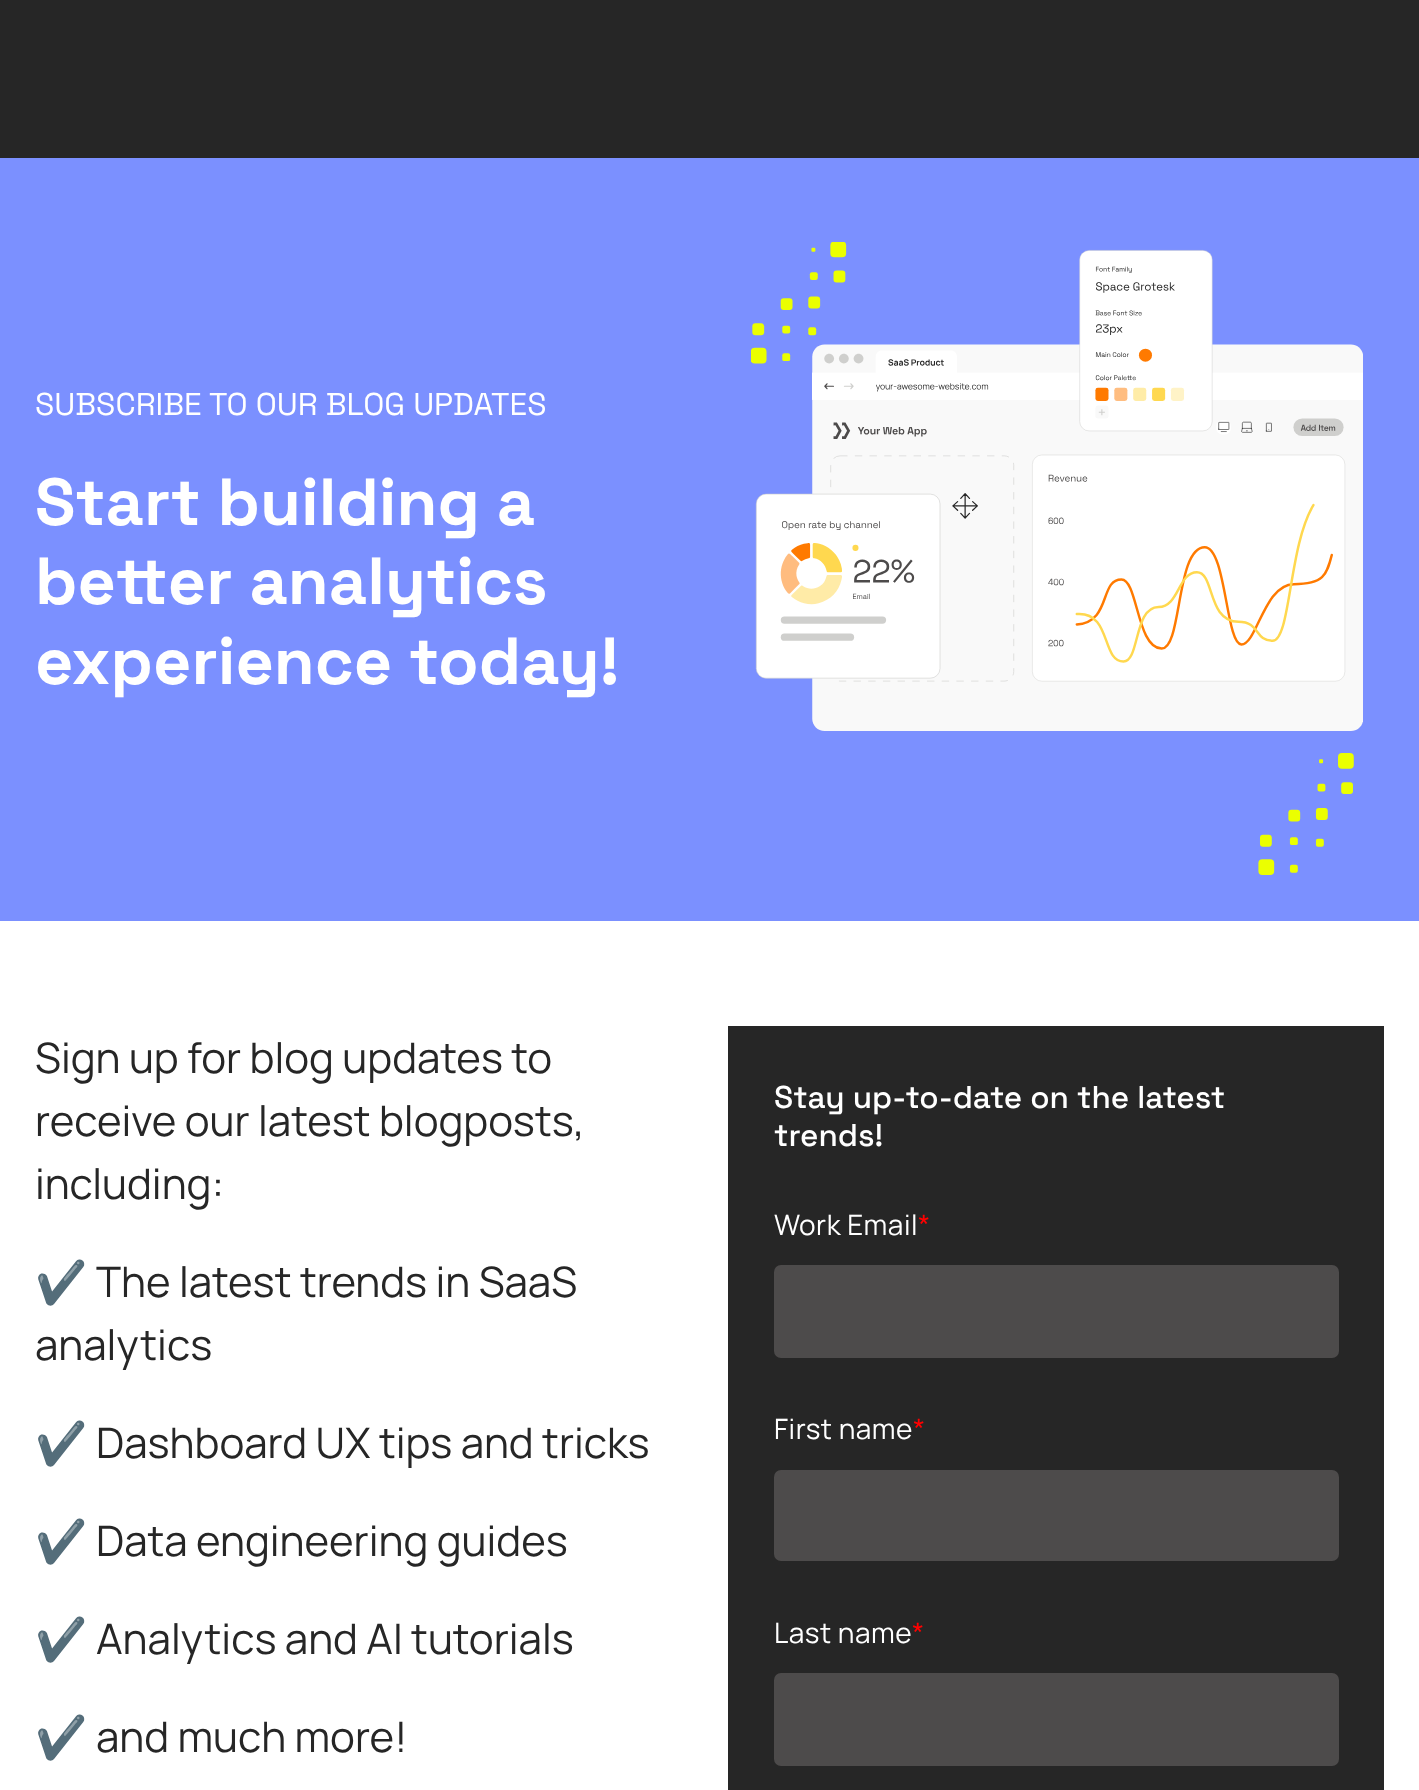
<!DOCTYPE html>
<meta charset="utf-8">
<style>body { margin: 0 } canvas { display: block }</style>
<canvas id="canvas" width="1419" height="1790"></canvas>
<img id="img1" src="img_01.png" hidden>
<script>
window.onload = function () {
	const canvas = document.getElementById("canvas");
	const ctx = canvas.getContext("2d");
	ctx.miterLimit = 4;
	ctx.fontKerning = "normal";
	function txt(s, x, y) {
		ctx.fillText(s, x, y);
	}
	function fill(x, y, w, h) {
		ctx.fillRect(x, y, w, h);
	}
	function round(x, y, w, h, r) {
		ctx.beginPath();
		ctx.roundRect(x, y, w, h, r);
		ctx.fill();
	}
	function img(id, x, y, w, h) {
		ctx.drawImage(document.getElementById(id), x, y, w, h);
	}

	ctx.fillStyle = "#FFFFFF";
	fill(0, 0, 1419, 1790);
	ctx.fillStyle = "#262626";
	fill(0, 0, 1419, 158);
	ctx.fillStyle = "#7B90FF";
	fill(0, 158, 1419, 763);
	img("img1", 751, 242, 612, 633);
	ctx.fillStyle = "#262626";
	fill(728, 1026, 656, 764);
	ctx.fillStyle = "#4D4B4B";
	round(774, 1265, 565, 93, 7);
	round(774, 1470, 565, 91, 7);
	round(774, 1673, 565, 93, 7);
	ctx.font = "31.5px Space Grotesk";
	ctx.fillStyle = "#FFFFFF";
	txt("SUBSCRIBE TO OUR BLOG UPDATES", 35, 415);
	ctx.font = "bold 66.5px Space Grotesk";
	txt("Start building a", 35, 525);
	txt("better analytics", 35, 604);
	txt("experience today!", 35, 684);
	ctx.font = "42px Manrope";
	ctx.fillStyle = "#262626";
	txt("Sign up for blog updates to", 35, 1073);
	txt("receive our latest blogposts,", 35, 1136);
	txt("including:", 35, 1199);
	ctx.font = "42px Noto Color Emoji";
	txt("✔️", 35, 1297);
	ctx.font = "42px Manrope";
	txt("The latest trends in SaaS", 96, 1297);
	txt("analytics", 35, 1360);
	ctx.font = "42px Noto Color Emoji";
	txt("✔️", 35, 1458);
	ctx.font = "42px Manrope";
	txt("Dashboard UX tips and tricks", 96, 1458);
	ctx.font = "42px Noto Color Emoji";
	txt("✔️", 35, 1556);
	ctx.font = "42px Manrope";
	txt("Data engineering guides", 96, 1556);
	ctx.font = "42px Noto Color Emoji";
	txt("✔️", 35, 1654);
	ctx.font = "42px Manrope";
	txt("Analytics and AI tutorials", 96, 1654);
	ctx.font = "42px Noto Color Emoji";
	txt("✔️", 35, 1752);
	ctx.font = "42px Manrope";
	txt("and much more!", 96, 1752);
	ctx.font = "500 31.5px Space Grotesk";
	ctx.fillStyle = "#FFFFFF";
	txt("Stay up-to-date on the latest", 774, 1108);
	txt("trends!", 774, 1146);
	ctx.letterSpacing = "0.5px";
	ctx.font = "28px Manrope";
	txt("Work Email", 774, 1235);
	ctx.fillStyle = "#FF0000";
	txt("*", 918, 1235);
	ctx.fillStyle = "#FFFFFF";
	txt("First name", 774, 1439);
	ctx.fillStyle = "#FF0000";
	txt("*", 913, 1439);
	ctx.fillStyle = "#FFFFFF";
	txt("Last name", 774, 1643);
	ctx.fillStyle = "#FF0000";
	txt("*", 912, 1643);
};
</script>
